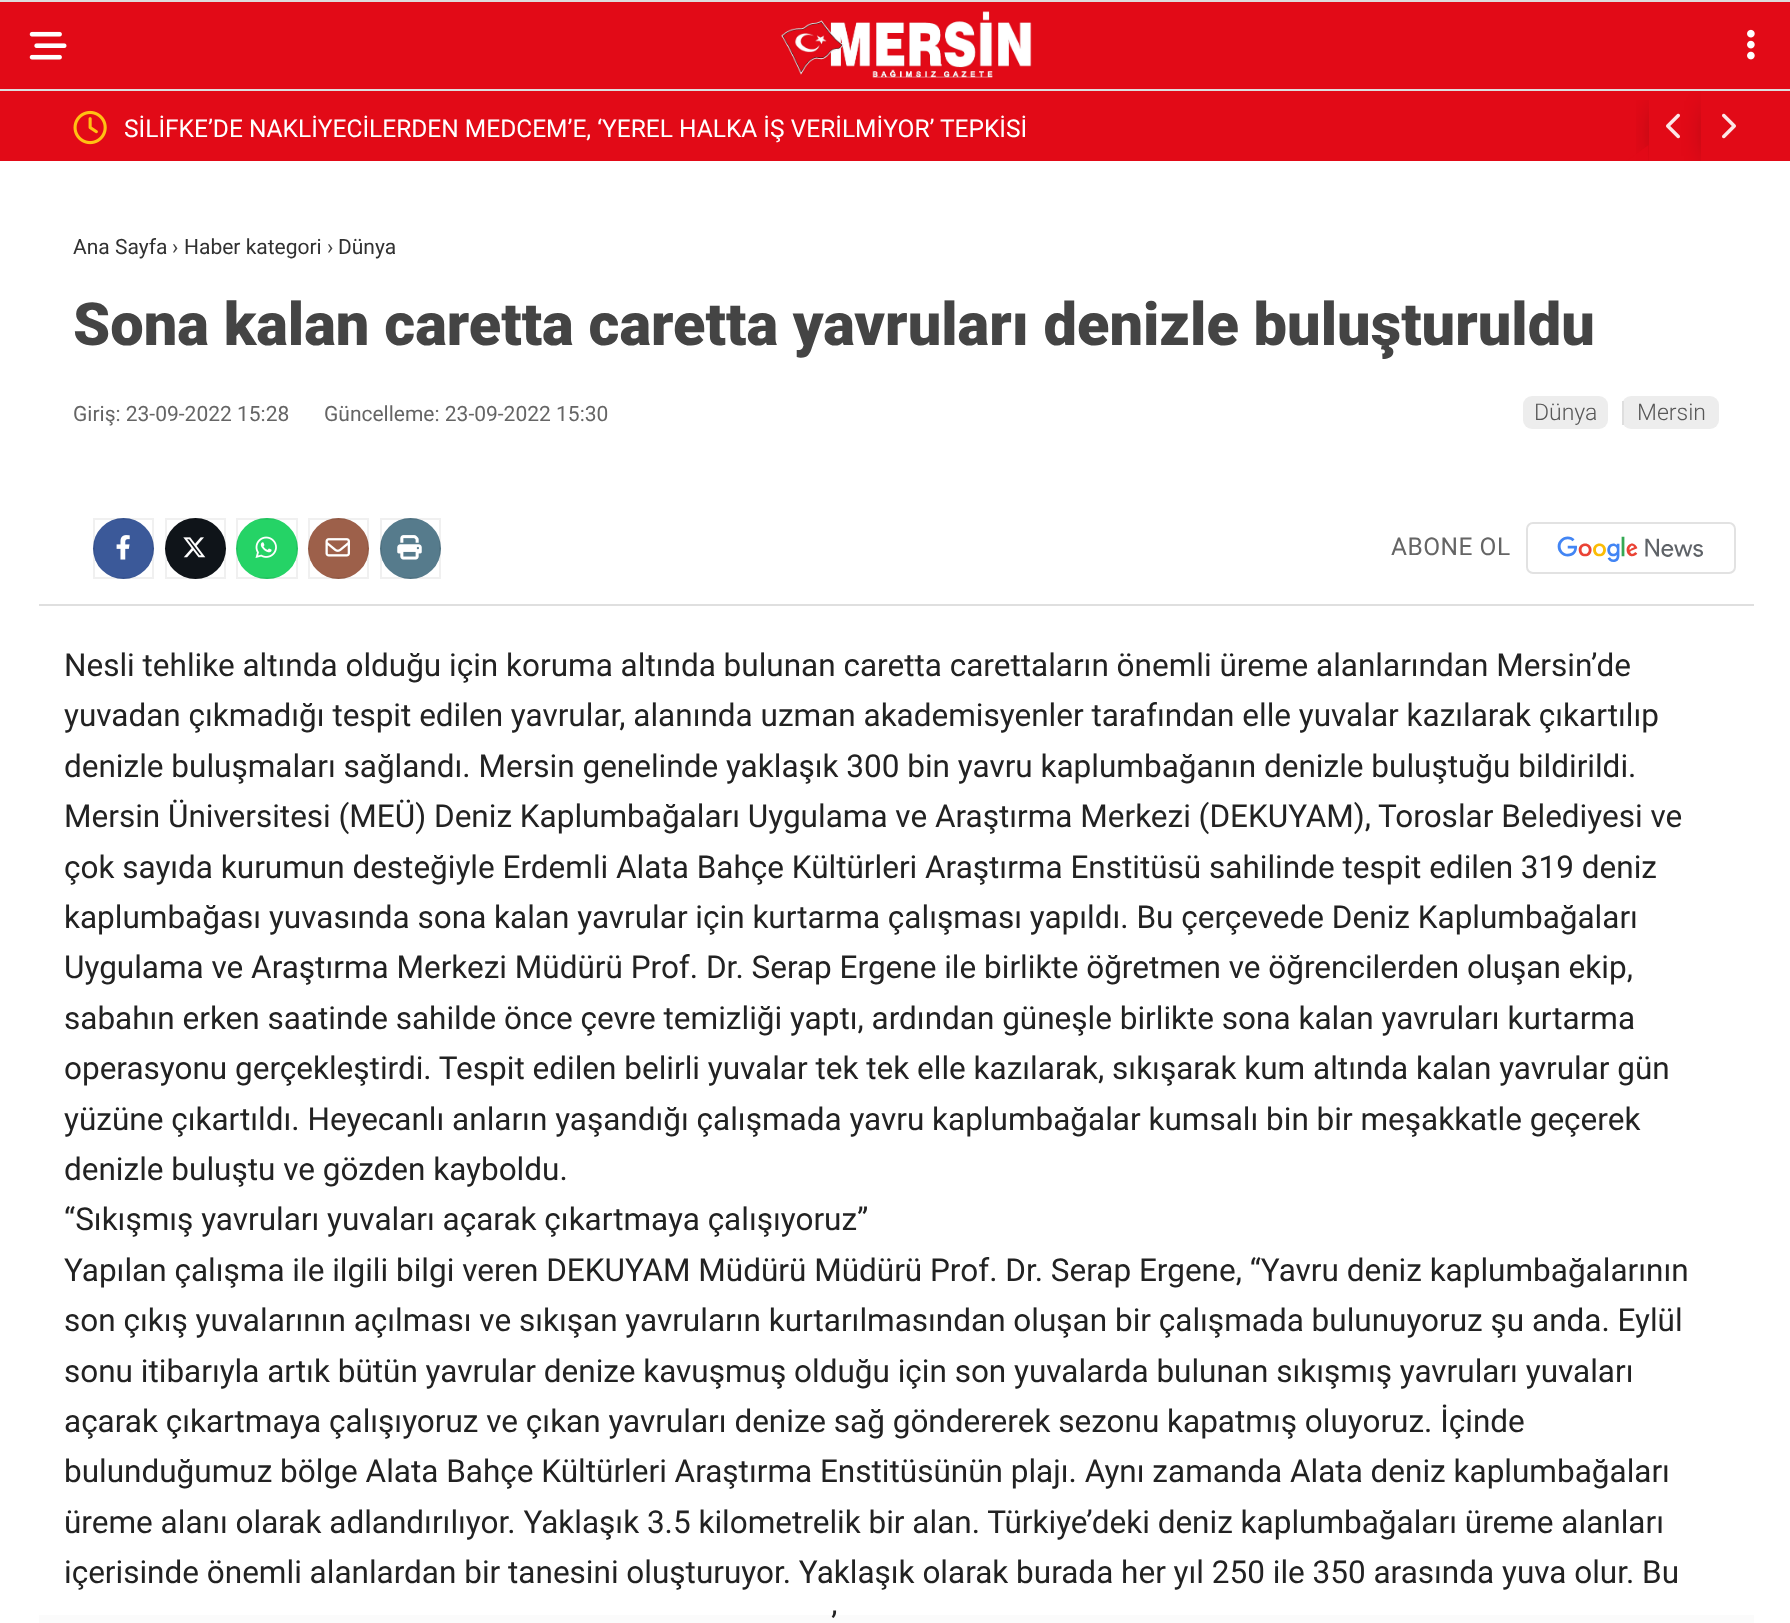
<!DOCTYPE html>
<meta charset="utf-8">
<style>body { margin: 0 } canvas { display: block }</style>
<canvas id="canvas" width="1790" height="1623"></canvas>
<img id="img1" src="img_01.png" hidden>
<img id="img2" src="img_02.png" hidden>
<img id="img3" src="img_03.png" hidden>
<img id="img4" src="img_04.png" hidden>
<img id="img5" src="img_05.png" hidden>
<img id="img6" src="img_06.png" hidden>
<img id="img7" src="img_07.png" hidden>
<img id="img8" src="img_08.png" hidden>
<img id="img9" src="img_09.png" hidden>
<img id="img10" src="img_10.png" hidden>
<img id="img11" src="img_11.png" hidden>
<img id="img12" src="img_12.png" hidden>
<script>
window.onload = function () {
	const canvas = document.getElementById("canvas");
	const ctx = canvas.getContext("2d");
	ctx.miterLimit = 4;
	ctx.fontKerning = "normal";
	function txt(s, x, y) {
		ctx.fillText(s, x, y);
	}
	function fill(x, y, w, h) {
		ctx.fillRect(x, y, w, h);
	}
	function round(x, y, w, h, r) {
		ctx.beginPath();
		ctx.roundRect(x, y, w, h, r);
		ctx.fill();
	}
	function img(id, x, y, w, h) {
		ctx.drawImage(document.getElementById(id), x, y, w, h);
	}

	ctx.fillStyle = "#FFFFFF";
	fill(0, 0, 1790, 1623);
	ctx.fillStyle = "#DDDDDD";
	fill(0, 0, 1790, 2);
	ctx.fillStyle = "#E20A17";
	fill(0, 2, 1790, 87);
	ctx.fillStyle = "#DDDDDD";
	fill(0, 89, 1790, 2);
	img("img1", 29, 31, 38, 29);
	img("img2", 781, 11, 251, 67);
	img("img3", 1747, 29, 8, 31);
	ctx.fillStyle = "#E20A17";
	fill(0, 91, 1790, 70);
	img("img4", 73, 110, 34, 35);
	ctx.save();
	ctx.beginPath();
	ctx.rect(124, 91, 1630, 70);
	ctx.clip();
	ctx.beginPath();
	ctx.rect(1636, 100, 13, 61);
	ctx.clip();
	ctx.fillStyle = "rgba(0, 0, 0, 0.42)";
	ctx.filter = "blur(14px)";
	ctx.beginPath();
	ctx.rect(1659, 110, 25, 46);
	ctx.fill();
	ctx.filter = "none";
	ctx.restore();
	img("img5", 1666, 113, 14, 26);
	ctx.save();
	ctx.beginPath();
	ctx.rect(124, 91, 1630, 70);
	ctx.clip();
	ctx.fillStyle = "rgba(226, 10, 23, 0.9)";
	ctx.beginPath();
	ctx.moveTo(1648.5, 164.5);
	ctx.lineTo(1622, 164.5);
	ctx.lineTo(1648.5, 145);
	ctx.closePath();
	ctx.fill();
	ctx.restore();
	ctx.save();
	ctx.beginPath();
	ctx.rect(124, 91, 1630, 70);
	ctx.clip();
	ctx.fillStyle = "rgba(0, 0, 0, 0.42)";
	ctx.filter = "blur(14px)";
	ctx.beginPath();
	ctx.rect(1712, 110, 24, 46);
	ctx.fill();
	ctx.filter = "none";
	ctx.restore();
	fill(1701, 91, 53, 70);
	img("img6", 1722, 113, 14, 26);
	ctx.fillStyle = "#EDEDED";
	round(1523, 396, 85, 33, 9);
	round(1622, 396, 97, 33, 9);
	ctx.fillStyle = "#DEDEDE";
	fill(1622, 401, 2, 24);
	ctx.fillStyle = "#DFDFDF";
	fill(39, 604, 1715, 2);
	ctx.fillStyle = "#3B5999";
	ctx.beginPath();
	ctx.arc(123.5, 548.5, 30.5, 0, Math.PI * 2);
	ctx.fill();
	ctx.strokeStyle = "rgba(0, 0, 0, 0.06)";
	ctx.lineWidth = 2;
	ctx.strokeRect(94, 519, 59, 59);
	img("img7", 116, 535, 14, 25);
	ctx.fillStyle = "#0F1419";
	ctx.beginPath();
	ctx.arc(195.5, 548.5, 30.5, 0, Math.PI * 2);
	ctx.fill();
	ctx.strokeRect(166, 519, 59, 59);
	img("img8", 183, 537, 23, 21);
	ctx.fillStyle = "#25D366";
	round(236, 518, 62, 61, 30.5);
	ctx.strokeRect(237, 519, 60, 59);
	img("img9", 255, 536, 22, 22);
	ctx.fillStyle = "#9D604A";
	ctx.beginPath();
	ctx.arc(338.5, 548.5, 30.5, 0, Math.PI * 2);
	ctx.fill();
	ctx.strokeRect(309, 519, 59, 59);
	img("img10", 325, 538, 25, 19);
	ctx.fillStyle = "#567B8C";
	ctx.beginPath();
	ctx.arc(410.5, 548.5, 30.5, 0, Math.PI * 2);
	ctx.fill();
	ctx.strokeRect(381, 519, 59, 59);
	img("img11", 397, 535, 25, 25);
	img("img12", 1557, 536, 146, 26);
	ctx.beginPath();
	ctx.roundRect(1527, 523, 208, 50, 6);
	ctx.strokeStyle = "#E2E2E2";
	ctx.stroke();
	ctx.fillStyle = "rgba(213, 213, 213, 0.1)";
	fill(39, 1615, 1715, 8);
	ctx.font = "24.5px Roboto";
	ctx.fillStyle = "#FFFFFF";
	txt("SİLİFKE’DE NAKLİYECİLERDEN MEDCEM’E, ‘YEREL HALKA İŞ VERİLMİYOR’ TEPKİSİ", 124, 137);
	ctx.font = "21px Roboto";
	ctx.fillStyle = "#313131";
	txt("Ana Sayfa", 73, 254);
	ctx.fillStyle = "#444444";
	txt("›", 172, 254);
	ctx.fillStyle = "#313131";
	txt("Haber kategori", 184, 254);
	ctx.fillStyle = "#444444";
	txt("›", 327, 254);
	ctx.fillStyle = "#313131";
	txt("Dünya", 338, 254);
	ctx.font = "900 59.5px Roboto";
	ctx.fillStyle = "#444444";
	txt("Sona kalan caretta caretta yavruları denizle buluşturuldu", 73, 345);
	ctx.font = "21px Roboto";
	ctx.fillStyle = "#656565";
	txt("Giriş: 23-09-2022 15:28", 73, 421);
	txt("Güncelleme: 23-09-2022 15:30", 324, 421);
	ctx.font = "300 23px Roboto";
	ctx.fillStyle = "#575757";
	txt("Dünya", 1534, 420);
	txt("Mersin", 1637, 420);
	ctx.letterSpacing = "0.5px";
	ctx.font = "24.5px Roboto";
	ctx.fillStyle = "#656565";
	txt("ABONE OL", 1391, 555);
	ctx.letterSpacing = "0px";
	ctx.font = "31.5px Roboto";
	ctx.fillStyle = "#222222";
	txt("Nesli tehlike altında olduğu için koruma altında bulunan caretta carettaların önemli üreme alanlarından Mersin’de", 64, 676);
	txt("yuvadan çıkmadığı tespit edilen yavrular, alanında uzman akademisyenler tarafından elle yuvalar kazılarak çıkartılıp", 64, 726);
	txt("denizle buluşmaları sağlandı. Mersin genelinde yaklaşık 300 bin yavru kaplumbağanın denizle buluştuğu bildirildi.", 64, 777);
	txt("Mersin Üniversitesi (MEÜ) Deniz Kaplumbağaları Uygulama ve Araştırma Merkezi (DEKUYAM), Toroslar Belediyesi ve", 64, 827);
	txt("çok sayıda kurumun desteğiyle Erdemli Alata Bahçe Kültürleri Araştırma Enstitüsü sahilinde tespit edilen 319 deniz", 64, 878);
	txt("kaplumbağası yuvasında sona kalan yavrular için kurtarma çalışması yapıldı. Bu çerçevede Deniz Kaplumbağaları", 64, 928);
	txt("Uygulama ve Araştırma Merkezi Müdürü Prof. Dr. Serap Ergene ile birlikte öğretmen ve öğrencilerden oluşan ekip,", 64, 978);
	txt("sabahın erken saatinde sahilde önce çevre temizliği yaptı, ardından güneşle birlikte sona kalan yavruları kurtarma", 64, 1029);
	txt("operasyonu gerçekleştirdi. Tespit edilen belirli yuvalar tek tek elle kazılarak, sıkışarak kum altında kalan yavrular gün", 64, 1079);
	txt("yüzüne çıkartıldı. Heyecanlı anların yaşandığı çalışmada yavru kaplumbağalar kumsalı bin bir meşakkatle geçerek", 64, 1130);
	txt("denizle buluştu ve gözden kayboldu.", 64, 1180);
	txt("“Sıkışmış yavruları yuvaları açarak çıkartmaya çalışıyoruz”", 64, 1230);
	txt("Yapılan çalışma ile ilgili bilgi veren DEKUYAM Müdürü Müdürü Prof. Dr. Serap Ergene, “Yavru deniz kaplumbağalarının", 64, 1281);
	txt("son çıkış yuvalarının açılması ve sıkışan yavruların kurtarılmasından oluşan bir çalışmada bulunuyoruz şu anda. Eylül", 64, 1331);
	txt("sonu itibarıyla artık bütün yavrular denize kavuşmuş olduğu için son yuvalarda bulunan sıkışmış yavruları yuvaları", 64, 1382);
	txt("açarak çıkartmaya çalışıyoruz ve çıkan yavruları denize sağ göndererek sezonu kapatmış oluyoruz. İçinde", 64, 1432);
	txt("bulunduğumuz bölge Alata Bahçe Kültürleri Araştırma Enstitüsünün plajı. Aynı zamanda Alata deniz kaplumbağaları", 64, 1482);
	txt("üreme alanı olarak adlandırılıyor. Yaklaşık 3.5 kilometrelik bir alan. Türkiye’deki deniz kaplumbağaları üreme alanları", 64, 1533);
	txt("içerisinde önemli alanlardan bir tanesini oluşturuyor. Yaklaşık olarak burada her yıl 250 ile 350 arasında yuva olur. Bu", 64, 1583);
	txt("’", 831, 1634);
};
</script>
